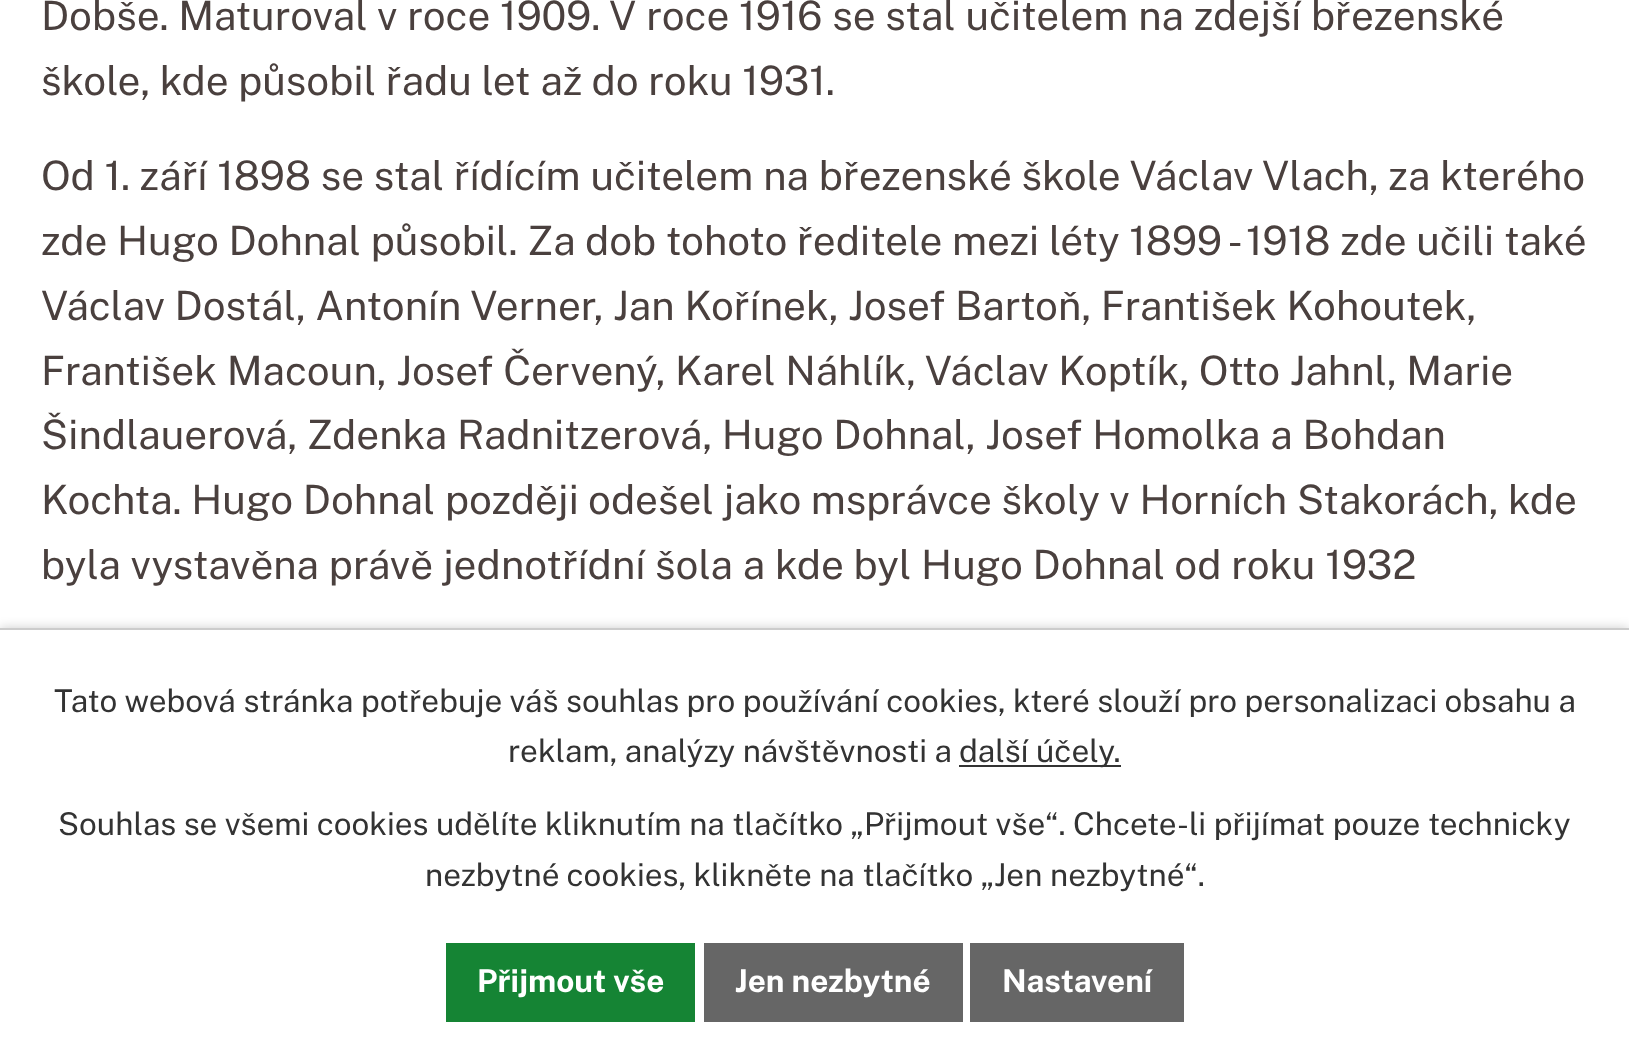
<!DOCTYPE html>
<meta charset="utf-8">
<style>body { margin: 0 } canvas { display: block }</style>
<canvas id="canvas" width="1629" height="1063"></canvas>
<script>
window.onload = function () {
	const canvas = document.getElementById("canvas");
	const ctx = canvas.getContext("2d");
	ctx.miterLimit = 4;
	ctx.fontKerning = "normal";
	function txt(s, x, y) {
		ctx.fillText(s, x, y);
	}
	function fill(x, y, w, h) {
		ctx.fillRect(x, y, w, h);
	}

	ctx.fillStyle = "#FFFFFF";
	fill(0, 0, 1629, 1063);
	ctx.fillStyle = "rgba(0, 0, 0, 0.2)";
	ctx.filter = "blur(5.5px)";
	ctx.beginPath();
	ctx.rect(0, 628, 1629, 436);
	ctx.fill();
	ctx.filter = "none";
	ctx.fillStyle = "#FFFFFF";
	fill(0, 630, 1629, 433);
	ctx.fillStyle = "#CCCCCC";
	fill(0, 628, 1629, 2);
	ctx.fillStyle = "#333333";
	fill(959, 765, 162, 2);
	ctx.fillStyle = "#158434";
	fill(446, 943, 249, 79);
	ctx.fillStyle = "#666666";
	fill(704, 943, 259, 79);
	fill(970, 943, 214, 79);
	ctx.font = "40.5px Public Sans";
	ctx.fillStyle = "#4A403E";
	txt("Dobše. Maturoval v roce 1909. V roce 1916 se stal učitelem na zdejší březenské", 41, 30);
	txt("škole, kde působil řadu let až do roku 1931.", 41, 95);
	txt("Od 1. září 1898 se stal řídícím učitelem na březenské škole Václav Vlach, za kterého", 41, 190);
	txt("zde Hugo Dohnal působil. Za dob tohoto ředitele mezi léty 1899 - 1918 zde učili také", 41, 255);
	txt("Václav Dostál, Antonín Verner, Jan Kořínek, Josef Bartoň, František Kohoutek,", 41, 320);
	txt("František Macoun, Josef Červený, Karel Náhlík, Václav Koptík, Otto Jahnl, Marie", 41, 385);
	txt("Šindlauerová, Zdenka Radnitzerová, Hugo Dohnal, Josef Homolka a Bohdan", 41, 449);
	txt("Kochta. Hugo Dohnal později odešel jako msprávce školy v Horních Stakorách, kde", 41, 514);
	txt("byla vystavěna právě jednotřídní šola a kde byl Hugo Dohnal od roku 1932", 41, 579);
	ctx.font = "31.5px Public Sans";
	ctx.fillStyle = "#333333";
	txt("Tato webová stránka potřebuje váš souhlas pro používání cookies, které slouží pro personalizaci obsahu a", 54, 712);
	txt("reklam, analýzy návštěvnosti a", 508, 762);
	txt("další účely.", 959, 762);
	txt("Souhlas se všemi cookies udělíte kliknutím na tlačítko „Přijmout vše“. Chcete-li přijímat pouze technicky", 58, 835);
	txt("nezbytné cookies, klikněte na tlačítko „Jen nezbytné“.", 425, 886);
	ctx.font = "bold 31.5px Public Sans";
	ctx.fillStyle = "#FFFFFF";
	txt("Přijmout vše", 477, 992);
	txt("Jen nezbytné", 735, 992);
	txt("Nastavení", 1002, 992);
};
</script>
